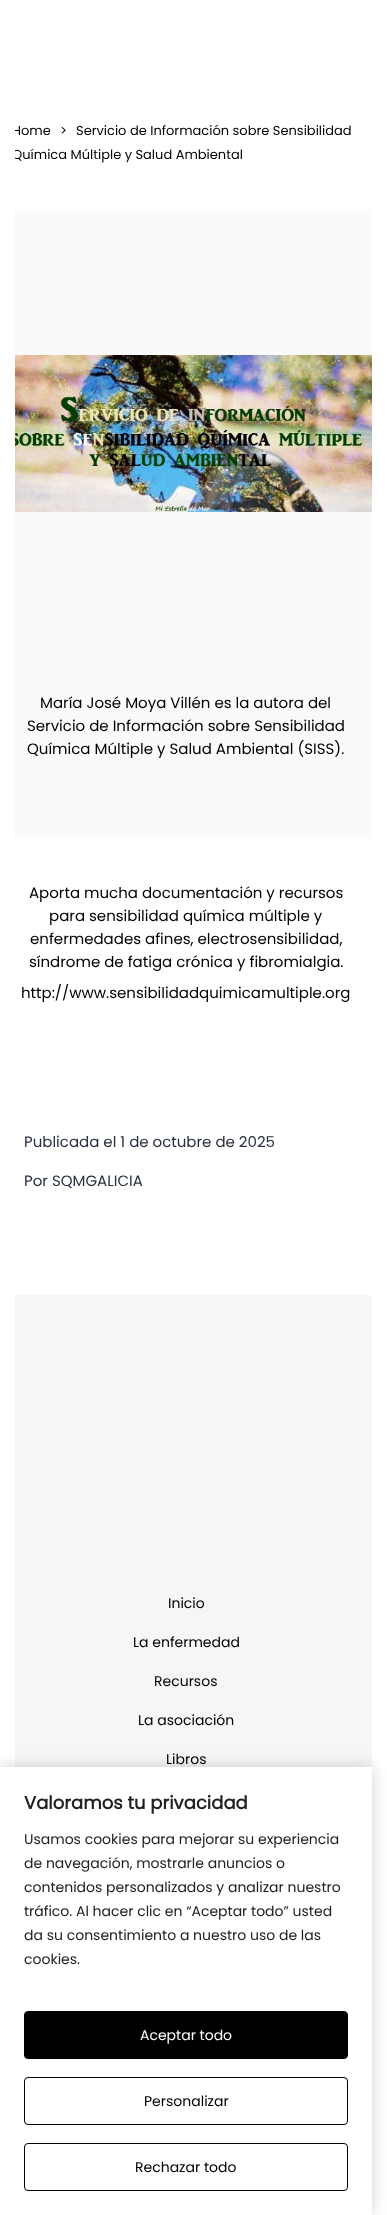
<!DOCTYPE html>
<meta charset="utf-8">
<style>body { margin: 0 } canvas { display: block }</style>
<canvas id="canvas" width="387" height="2215"></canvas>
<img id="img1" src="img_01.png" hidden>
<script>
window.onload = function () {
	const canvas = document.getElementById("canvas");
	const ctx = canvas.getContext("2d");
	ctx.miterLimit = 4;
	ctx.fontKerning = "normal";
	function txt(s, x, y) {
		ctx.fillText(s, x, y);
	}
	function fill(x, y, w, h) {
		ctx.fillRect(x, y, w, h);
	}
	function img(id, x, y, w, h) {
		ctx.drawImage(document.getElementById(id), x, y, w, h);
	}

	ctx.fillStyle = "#FFFFFF";
	fill(0, 0, 387, 2215);
	ctx.fillStyle = "#FAFAFA";
	fill(15, 209, 357, 630);
	img("img1", 15, 355, 357, 157);
	ctx.fillStyle = "#F6F6F6";
	fill(15, 1295, 357, 472);
	ctx.fillStyle = "rgba(0, 0, 0, 0.18)";
	ctx.filter = "blur(8px)";
	ctx.beginPath();
	ctx.rect(0, 1767, 372, 448);
	ctx.fill();
	ctx.filter = "none";
	ctx.fillStyle = "#FFFFFF";
	fill(0, 1767, 372, 448);
	ctx.fillStyle = "#000000";
	ctx.beginPath();
	ctx.roundRect(24.5, 2011.5, 323, 47, 3.5);
	ctx.fill();
	ctx.strokeStyle = "#000000";
	ctx.stroke();
	ctx.beginPath();
	ctx.roundRect(24.5, 2077.5, 323, 47, 3.5);
	ctx.stroke();
	ctx.beginPath();
	ctx.roundRect(24.5, 2143.5, 323, 47, 3.5);
	ctx.stroke();
	ctx.font = "13px Poppins";
	txt("Home", 12, 135);
	txt(">", 60, 135);
	txt("Servicio de Información sobre Sensibilidad", 76, 135);
	txt("Química Múltiple y Salud Ambiental", 12, 159);
	ctx.font = "15px Poppins";
	txt("María José Moya Villén es la autora del", 40, 708);
	txt("Servicio de Información sobre Sensibilidad", 27, 731);
	txt("Química Múltiple y Salud Ambiental (SISS).", 27, 754);
	txt("Aporta mucha documentación y recursos", 29, 898);
	txt("para sensibilidad química múltiple y", 49, 921);
	txt("enfermedades afines, electrosensibilidad,", 30, 944);
	txt("síndrome de fatiga crónica y fibromialgia.", 29, 967);
	txt("http://www.sensibilidadquimicamultiple.org", 21, 998);
	ctx.fillStyle = "#28303D";
	txt("Publicada el 1 de octubre de 2025", 24, 1147);
	txt("Por SQMGALICIA", 24, 1186);
	ctx.fillStyle = "#FFFFFF";
	fill(12, 125, 3, 34);
	ctx.font = "14px Poppins";
	ctx.fillStyle = "#000000";
	txt("Inicio", 168, 1608);
	txt("La enfermedad", 133, 1647);
	txt("Recursos", 154, 1686);
	txt("La asociación", 138, 1725);
	txt("Libros", 166, 1764);
	ctx.font = "bold 18px Poppins";
	ctx.fillStyle = "#212121";
	txt("Valoramos tu privacidad", 24, 1809);
	ctx.font = "14px Poppins";
	txt("Usamos cookies para mejorar su experiencia", 24, 1844);
	txt("de navegación, mostrarle anuncios o", 24, 1868);
	txt("contenidos personalizados y analizar nuestro", 24, 1892);
	txt("tráfico. Al hacer clic en “Aceptar todo” usted", 24, 1916);
	txt("da su consentimiento a nuestro uso de las", 24, 1940);
	txt("cookies.", 24, 1964);
	ctx.fillStyle = "#FFFFFF";
	txt("Aceptar todo", 140, 2040);
	ctx.fillStyle = "#000000";
	txt("Personalizar", 144, 2106);
	txt("Rechazar todo", 135, 2172);
};
</script>
